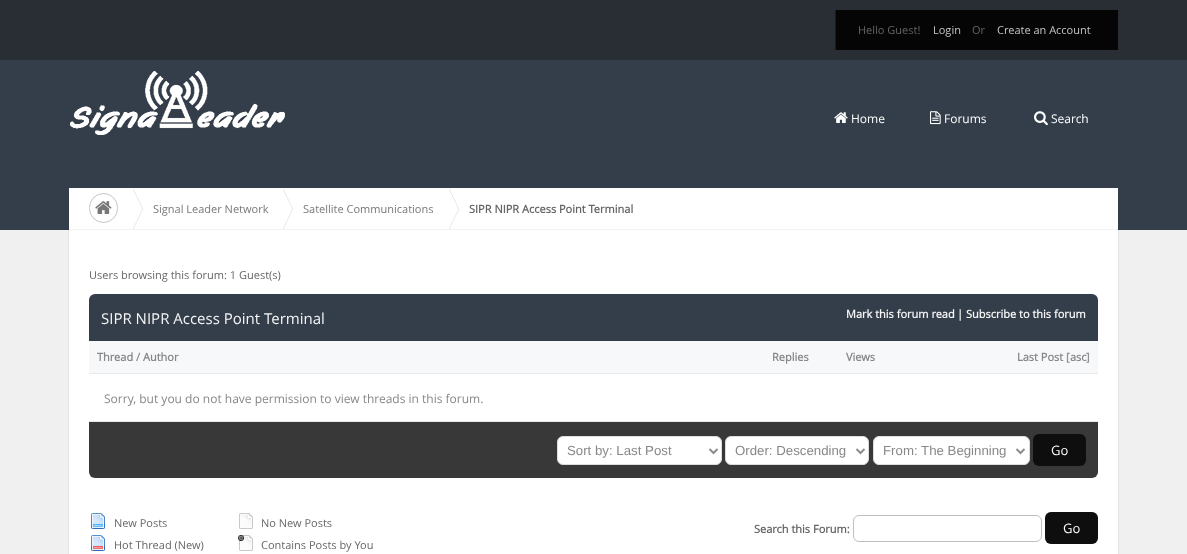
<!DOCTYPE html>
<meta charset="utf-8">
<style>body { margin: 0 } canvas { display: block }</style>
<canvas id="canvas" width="1187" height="554"></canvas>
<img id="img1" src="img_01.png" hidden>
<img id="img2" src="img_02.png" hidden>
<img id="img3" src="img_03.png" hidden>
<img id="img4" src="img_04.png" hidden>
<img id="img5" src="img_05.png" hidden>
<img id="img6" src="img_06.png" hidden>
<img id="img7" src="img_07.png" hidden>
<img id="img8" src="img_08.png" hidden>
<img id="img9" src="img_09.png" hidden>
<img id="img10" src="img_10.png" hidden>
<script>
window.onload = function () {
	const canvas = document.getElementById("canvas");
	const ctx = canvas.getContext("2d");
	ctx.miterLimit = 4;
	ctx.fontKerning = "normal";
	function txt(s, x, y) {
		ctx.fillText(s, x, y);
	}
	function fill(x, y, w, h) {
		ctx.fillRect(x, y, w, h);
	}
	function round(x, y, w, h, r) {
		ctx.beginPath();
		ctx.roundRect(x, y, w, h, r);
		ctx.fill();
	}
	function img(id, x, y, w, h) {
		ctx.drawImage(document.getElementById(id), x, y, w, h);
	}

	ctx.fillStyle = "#F0F0F0";
	fill(0, 0, 1187, 554);
	ctx.fillStyle = "#292E35";
	fill(0, 0, 1187, 60);
	ctx.fillStyle = "#050505";
	fill(836, 10, 282, 40);
	ctx.fillStyle = "#1B1B1B";
	fill(835, 10, 1, 40);
	ctx.fillStyle = "#343E4A";
	fill(0, 60, 1187, 170);
	img("img1", 70, 71, 215, 64);
	img("img2", 834, 112, 14, 11);
	img("img3", 930, 111, 11, 14);
	img("img4", 1034, 111, 14, 15);
	ctx.fillStyle = "#FFFFFF";
	fill(69, 188, 1049, 41);
	ctx.fillStyle = "#F3F3F3";
	fill(69, 229, 1049, 1);
	img("img5", 133, 189, 10, 40);
	ctx.beginPath();
	ctx.roundRect(89.5, 193.5, 28, 29, 14);
	ctx.strokeStyle = "#C7C4C4";
	ctx.stroke();
	img("img6", 95, 201, 17, 13);
	img("img5", 283, 189, 10, 40);
	img("img5", 449, 189, 10, 40);
	ctx.fillStyle = "#FFFFFF";
	fill(69, 230, 1049, 324);
	ctx.fillStyle = "#E4E4E4";
	fill(1118, 230, 1, 324);
	fill(68, 230, 1, 324);
	ctx.fillStyle = "#343E4A";
	ctx.beginPath();
	ctx.roundRect(89, 294, 1009, 47, [6, 6, 0, 0]);
	ctx.fill();
	ctx.fillStyle = "#F7F8FA";
	fill(89, 341, 1009, 32);
	ctx.fillStyle = "#EBEBEB";
	fill(89, 373, 1009, 1);
	ctx.fillStyle = "#E8E8E8";
	fill(89, 421, 1009, 1);
	ctx.fillStyle = "#383838";
	ctx.beginPath();
	ctx.roundRect(89, 422, 1009, 56, [0, 0, 6, 6]);
	ctx.fill();
	ctx.fillStyle = "#FFFFFF";
	ctx.beginPath();
	ctx.roundRect(557.5, 436.5, 164, 28, 5.5);
	ctx.fill();
	ctx.strokeStyle = "#DDDDDD";
	ctx.stroke();
	ctx.beginPath();
	ctx.moveTo(709.5, 449);
	ctx.lineTo(713.5, 453);
	ctx.lineTo(717.5, 449);
	ctx.strokeStyle = "#8D8D8D";
	ctx.lineWidth = 2;
	ctx.stroke();
	ctx.beginPath();
	ctx.roundRect(725.5, 436.5, 143, 28, 5.5);
	ctx.fill();
	ctx.strokeStyle = "#DDDDDD";
	ctx.lineWidth = 1;
	ctx.stroke();
	ctx.beginPath();
	ctx.moveTo(856.5, 449);
	ctx.lineTo(860.5, 453);
	ctx.lineTo(864.5, 449);
	ctx.strokeStyle = "#8D8D8D";
	ctx.lineWidth = 2;
	ctx.stroke();
	ctx.beginPath();
	ctx.roundRect(873.5, 436.5, 156, 28, 5.5);
	ctx.fill();
	ctx.strokeStyle = "#DDDDDD";
	ctx.lineWidth = 1;
	ctx.stroke();
	ctx.beginPath();
	ctx.moveTo(1016.5, 449);
	ctx.lineTo(1020.5, 453);
	ctx.lineTo(1024.5, 449);
	ctx.strokeStyle = "#8D8D8D";
	ctx.lineWidth = 2;
	ctx.stroke();
	ctx.fillStyle = "#0E0E0E";
	round(1033, 434, 53, 32, 6);
	img("img7", 91, 513, 14, 16);
	img("img8", 91, 535, 14, 16);
	img("img9", 239, 513, 14, 16);
	img("img10", 238, 535, 15, 16);
	ctx.beginPath();
	ctx.roundRect(853.5, 515.5, 188, 26, 5.5);
	ctx.strokeStyle = "#BFBFBF";
	ctx.lineWidth = 1;
	ctx.stroke();
	round(1045, 512, 53, 32, 6);
	ctx.beginPath();
	ctx.roundRect(1045.5, 512.5, 52, 31, 5.5);
	ctx.strokeStyle = "rgba(20, 20, 20, 0.14)";
	ctx.stroke();
	ctx.font = "11px Open Sans";
	ctx.fillStyle = "#666666";
	txt("Hello Guest!", 858, 34);
	ctx.fillStyle = "#C5C5C5";
	txt("Login", 933, 34);
	ctx.fillStyle = "#666666";
	txt("Or", 972, 34);
	ctx.fillStyle = "#C5C5C5";
	txt("Create an Account", 997, 34);
	ctx.font = "12px Open Sans";
	ctx.fillStyle = "#FFFFFF";
	txt("Home", 851, 123);
	txt("Forums", 944, 123);
	txt("Search", 1051, 123);
	ctx.font = "11px Open Sans";
	ctx.fillStyle = "#777777";
	txt("Signal Leader Network", 153, 213);
	txt("Satellite Communications", 303, 213);
	ctx.font = "bold 11px Open Sans";
	ctx.fillStyle = "#666666";
	txt("SIPR NIPR Access Point Terminal", 469, 213);
	ctx.font = "11px Open Sans";
	txt("Users browsing this forum: 1 Guest(s)", 89, 279);
	ctx.font = "15px Open Sans";
	ctx.fillStyle = "#F5F5F5";
	txt("SIPR NIPR Access Point Terminal", 101, 324);
	ctx.font = "bold 11px Open Sans";
	txt("Mark this forum read", 846, 318);
	txt("|", 957, 318);
	txt("Subscribe to this forum", 966, 318);
	ctx.fillStyle = "#888888";
	txt("Thread", 97, 361);
	ctx.fillStyle = "#919191";
	txt("/", 136, 361);
	ctx.fillStyle = "#888888";
	txt("Author", 143, 361);
	txt("Replies", 772, 361);
	txt("Views", 846, 361);
	txt("Last Post", 1017, 361);
	ctx.fillStyle = "#919191";
	txt("[", 1066, 361);
	ctx.fillStyle = "#888888";
	txt("asc", 1070, 361);
	ctx.fillStyle = "#919191";
	txt("]", 1086, 361);
	ctx.font = "12px Open Sans";
	ctx.fillStyle = "#888888";
	txt("Sorry, but you do not have permission to view threads in this forum.", 104, 403);
	ctx.font = "13.25px Liberation Sans";
	txt("Sort by: Last Post", 567, 455);
	txt("Order: Descending", 735, 455);
	txt("From: The Beginning", 883, 455);
	ctx.font = "13px Open Sans";
	ctx.fillStyle = "#FFFFFF";
	txt("Go", 1051, 455);
	ctx.font = "11px Open Sans";
	ctx.fillStyle = "#666666";
	txt("New Posts", 114, 527);
	txt("Hot Thread (New)", 114, 549);
	txt("No New Posts", 261, 527);
	txt("Contains Posts by You", 261, 549);
	ctx.font = "bold 11px Open Sans";
	txt("Search this Forum:", 754, 533);
	ctx.font = "13px Open Sans";
	ctx.fillStyle = "#FFFFFF";
	txt("Go", 1063, 533);
};
</script>
